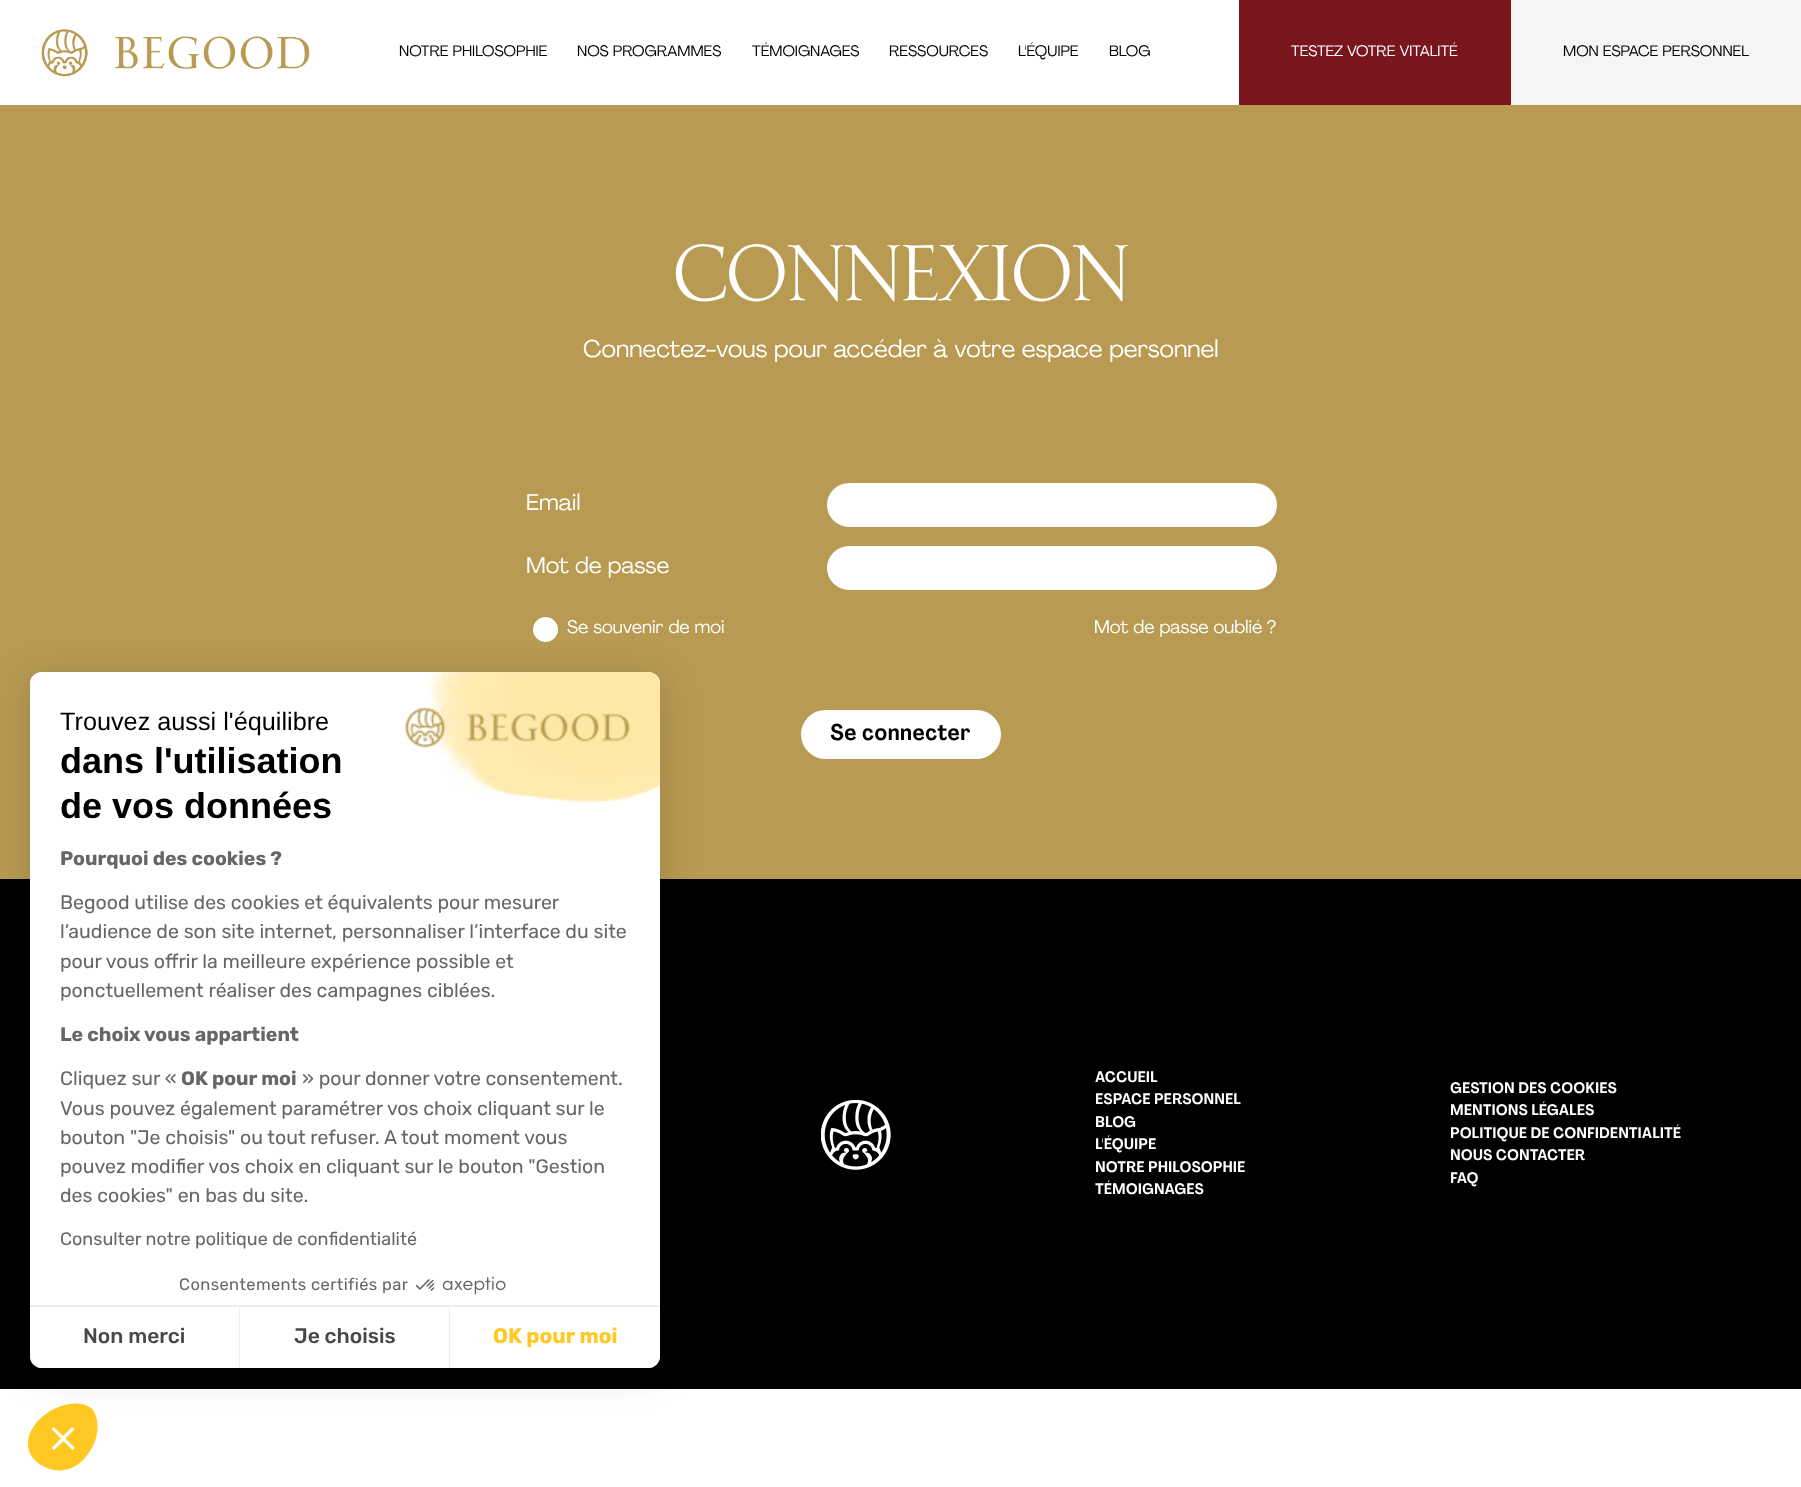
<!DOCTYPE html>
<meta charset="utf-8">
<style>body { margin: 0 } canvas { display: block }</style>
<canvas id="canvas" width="1801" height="1487"></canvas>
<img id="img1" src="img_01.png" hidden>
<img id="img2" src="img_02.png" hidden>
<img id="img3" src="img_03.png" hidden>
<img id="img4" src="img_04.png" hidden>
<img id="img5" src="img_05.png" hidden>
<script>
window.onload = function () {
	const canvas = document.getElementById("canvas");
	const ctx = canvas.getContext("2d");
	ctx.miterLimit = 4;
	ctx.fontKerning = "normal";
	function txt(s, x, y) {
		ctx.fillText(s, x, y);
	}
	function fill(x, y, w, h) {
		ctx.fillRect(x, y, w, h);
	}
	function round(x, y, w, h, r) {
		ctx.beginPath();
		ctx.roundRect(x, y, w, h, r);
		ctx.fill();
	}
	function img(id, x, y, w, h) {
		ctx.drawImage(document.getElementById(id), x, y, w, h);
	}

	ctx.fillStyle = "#FFFFFF";
	fill(0, 0, 1801, 1487);
	img("img1", 41, 29, 269, 48);
	ctx.fillStyle = "#79151D";
	fill(1239, 0, 272, 105);
	ctx.fillStyle = "#F5F5F5";
	fill(1511, 0, 290, 105);
	ctx.fillStyle = "#FFC823";
	ctx.beginPath();
	ctx.moveTo(92, 1409);
	ctx.bezierCurveTo(84, 1401, 62, 1400, 42, 1417);
	ctx.bezierCurveTo(24, 1433, 24, 1452, 38, 1463);
	ctx.bezierCurveTo(52, 1473, 70, 1474, 84, 1459);
	ctx.bezierCurveTo(101, 1441, 100, 1418, 92, 1409);
	ctx.fill();
	ctx.fillStyle = "#FFFFFF";
	ctx.beginPath();
	ctx.moveTo(74.5, 1429);
	ctx.lineTo(72, 1427);
	ctx.lineTo(63, 1436);
	ctx.lineTo(53.5, 1427);
	ctx.lineTo(51.5, 1429);
	ctx.lineTo(61, 1438.5);
	ctx.lineTo(51.5, 1448);
	ctx.lineTo(54, 1450);
	ctx.lineTo(63.5, 1441);
	ctx.lineTo(72.5, 1450);
	ctx.lineTo(75, 1448);
	ctx.lineTo(65.5, 1438.5);
	ctx.closePath();
	ctx.fill();
	ctx.fillStyle = "#B89A52";
	fill(0, 105, 1801, 774);
	ctx.fillStyle = "#FFFFFF";
	ctx.beginPath();
	ctx.arc(545.5, 629.5, 12.5, 0, Math.PI * 2);
	ctx.fill();
	ctx.fillStyle = "#000000";
	fill(0, 879, 1801, 510);
	ctx.fillStyle = "rgba(0, 0, 0, 0.15)";
	ctx.filter = "blur(18px)";
	ctx.beginPath();
	ctx.roundRect(30, 678, 630, 696, 12);
	ctx.fill();
	ctx.filter = "none";
	ctx.fillStyle = "#FFFFFF";
	round(30, 672, 630, 696, 12);
	round(30, 672, 630, 633, 12);
	img("img2", 426, 672, 234, 131);
	img("img3", 405, 707, 225, 40);
	img("img4", 416, 1276, 90, 19);
	ctx.fillStyle = "#EDEDED";
	fill(30, 1305, 630, 2);
	ctx.fillStyle = "#FFFFFF";
	ctx.beginPath();
	ctx.roundRect(30, 1307, 210, 61, [0, 0, 0, 12]);
	ctx.fill();
	ctx.fillStyle = "#EDEDED";
	fill(239, 1307, 1, 61);
	fill(449, 1307, 1, 61);
	ctx.fillStyle = "#FFFFFF";
	ctx.beginPath();
	ctx.roundRect(450, 1307, 210, 61, [0, 0, 12, 0]);
	ctx.fill();
	round(827, 483, 450, 44, 22);
	round(827, 546, 450, 44, 22);
	round(801, 710, 200, 49, 24.5);
	img("img5", 821, 1100, 70, 70);
	ctx.font = "15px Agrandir";
	ctx.fillStyle = "#000000";
	txt("NOTRE PHILOSOPHIE", 399, 56);
	txt("NOS PROGRAMMES", 577, 56);
	txt("TÉMOIGNAGES", 752, 56);
	txt("RESSOURCES", 889, 56);
	txt("L'ÉQUIPE", 1018, 56);
	txt("BLOG", 1109, 56);
	ctx.fillStyle = "#FFFFFF";
	txt("TESTEZ VOTRE VITALITÉ", 1291, 56);
	ctx.fillStyle = "#000000";
	txt("MON ESPACE PERSONNEL", 1563, 56);
	ctx.font = "25.25px Liberation Sans";
	txt("Trouvez aussi l'équilibre", 60, 730);
	ctx.font = "bold 36px Liberation Sans";
	txt("dans l'utilisation", 60, 773);
	txt("de vos données", 60, 818);
	ctx.font = "bold 19.5px Rubik";
	ctx.fillStyle = "#666666";
	txt("Pourquoi des cookies ?", 60, 865);
	ctx.font = "19.5px Rubik";
	txt("Begood utilise des cookies et équivalents pour mesurer", 60, 909);
	txt("l’audience de son site internet, personnaliser l’interface du site", 60, 938);
	txt("pour vous offrir la meilleure expérience possible et", 60, 968);
	txt("ponctuellement réaliser des campagnes ciblées.", 60, 997);
	ctx.font = "bold 19.5px Rubik";
	txt("Le choix vous appartient", 60, 1041);
	ctx.font = "19.5px Rubik";
	txt("Cliquez sur «", 60, 1085);
	ctx.font = "bold 19.5px Rubik";
	txt("OK pour moi", 181, 1085);
	ctx.font = "19.5px Rubik";
	txt("» pour donner votre consentement.", 302, 1085);
	txt("Vous pouvez également paramétrer vos choix cliquant sur le", 60, 1115);
	txt("bouton \"Je choisis\" ou tout refuser. A tout moment vous", 60, 1144);
	txt("pouvez modifier vos choix en cliquant sur le bouton \"Gestion", 60, 1173);
	txt("des cookies\" en bas du site.", 60, 1202);
	ctx.font = "18px Rubik";
	txt("Consulter notre politique de confidentialité", 60, 1245);
	ctx.letterSpacing = "0.4px";
	ctx.font = "16.5px Rubik";
	txt("Consentements certifiés par", 179, 1290);
	ctx.letterSpacing = "0px";
	ctx.font = "500 21px Rubik";
	ctx.fillStyle = "#474747";
	txt("Non merci", 83, 1343);
	txt("Je choisis", 294, 1343);
	ctx.font = "bold 21px Rubik";
	ctx.fillStyle = "#FFC823";
	txt("OK pour moi", 493, 1343);
	ctx.font = "78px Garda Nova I";
	ctx.fillStyle = "#FFFFFF";
	txt("Connexion", 673, 300);
	ctx.font = "24px Agrandir";
	txt("Connectez-vous pour accéder à votre espace personnel", 583, 357);
	ctx.font = "22.5px Agrandir";
	txt("Email", 526, 510);
	txt("Mot de passe", 526, 573);
	ctx.font = "18px Agrandir";
	txt("Se souvenir de moi", 567, 633);
	txt("Mot de passe oublié ?", 1094, 633);
	ctx.font = "bold 22.5px Agrandir";
	ctx.fillStyle = "#000000";
	txt("Se connecter", 830, 740);
	ctx.font = "bold 15px Agrandir";
	ctx.fillStyle = "#FFFFFF";
	txt("ACCUEIL", 1095, 1082);
	txt("ESPACE PERSONNEL", 1095, 1104);
	txt("BLOG", 1095, 1127);
	txt("L'ÉQUIPE", 1095, 1149);
	txt("NOTRE PHILOSOPHIE", 1095, 1172);
	txt("TÉMOIGNAGES", 1095, 1194);
	txt("GESTION DES COOKIES", 1450, 1093);
	txt("MENTIONS LÉGALES", 1450, 1115);
	txt("POLITIQUE DE CONFIDENTIALITÉ", 1450, 1138);
	txt("NOUS CONTACTER", 1450, 1160);
	txt("FAQ", 1450, 1183);
};
</script>
